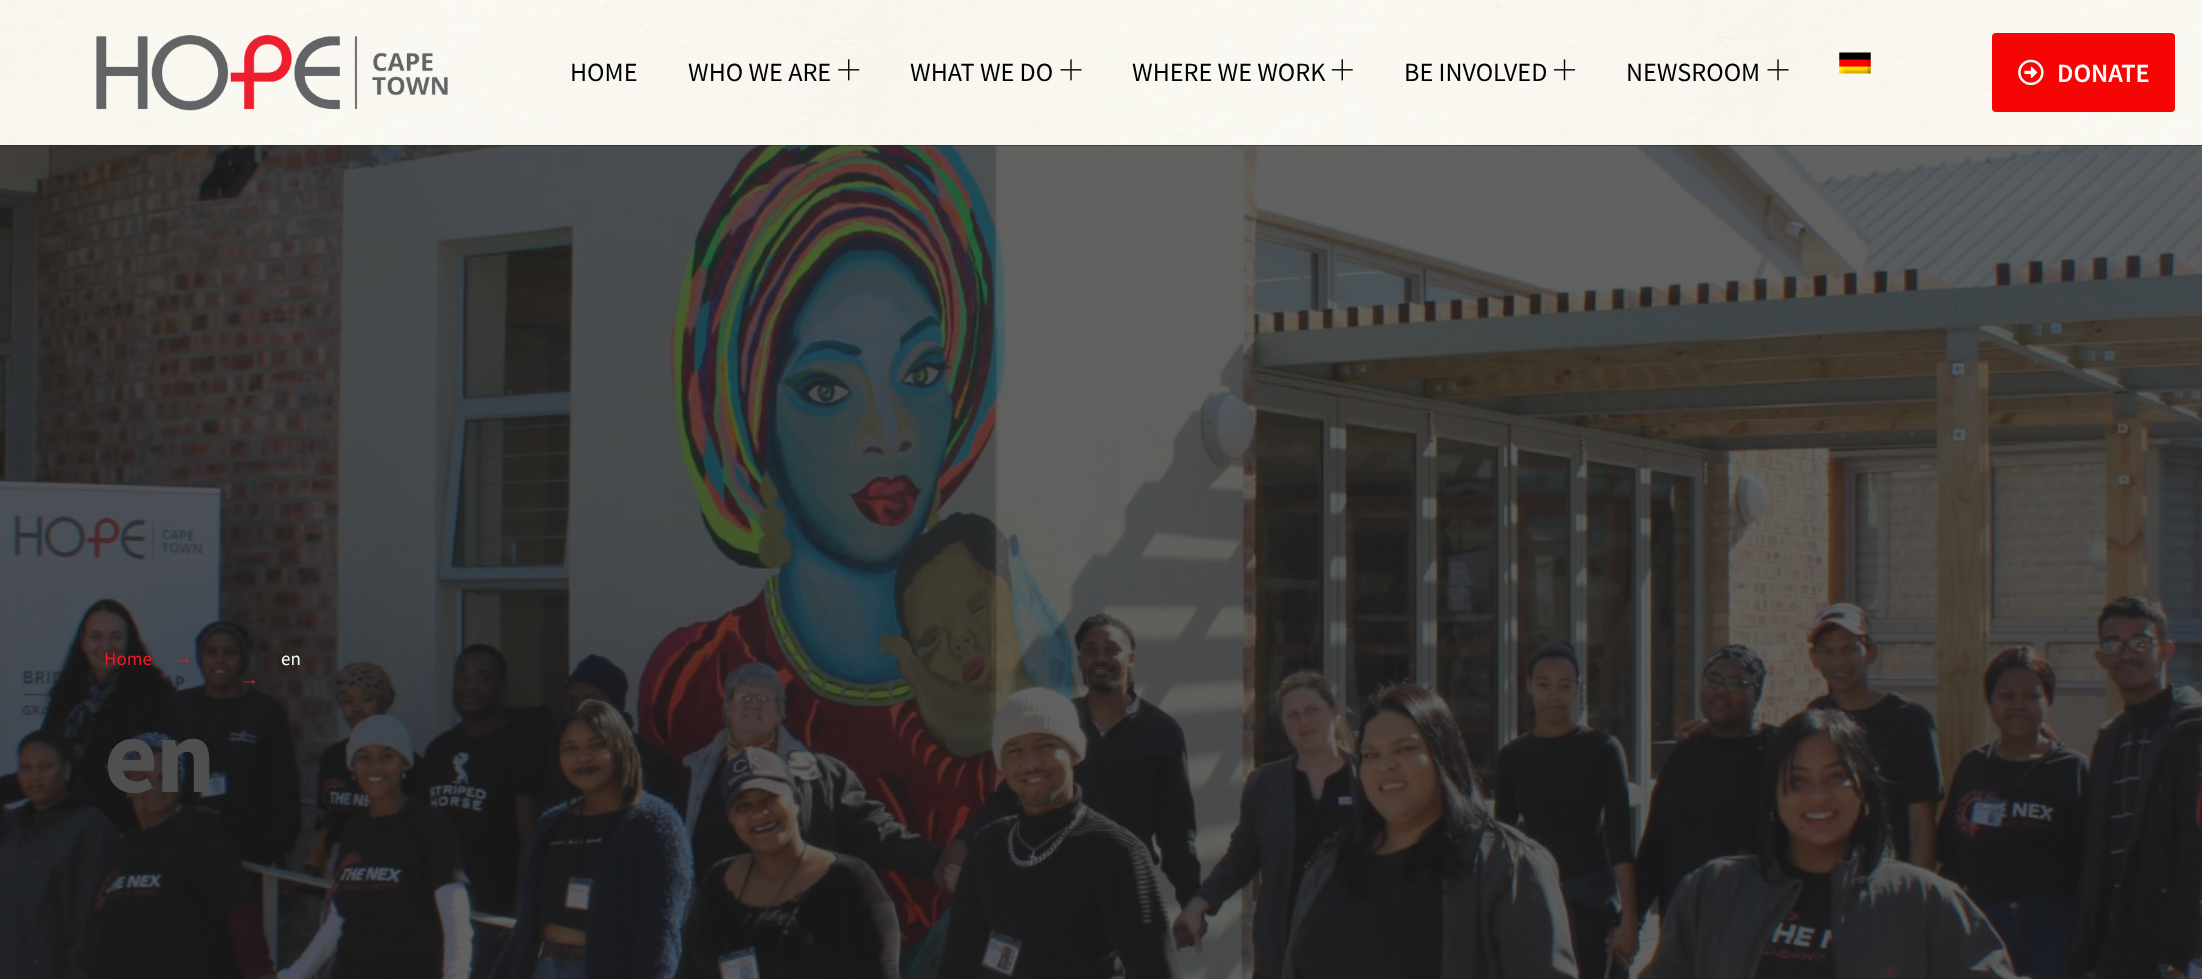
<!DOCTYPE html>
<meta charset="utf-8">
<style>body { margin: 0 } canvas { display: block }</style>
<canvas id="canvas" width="2202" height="979"></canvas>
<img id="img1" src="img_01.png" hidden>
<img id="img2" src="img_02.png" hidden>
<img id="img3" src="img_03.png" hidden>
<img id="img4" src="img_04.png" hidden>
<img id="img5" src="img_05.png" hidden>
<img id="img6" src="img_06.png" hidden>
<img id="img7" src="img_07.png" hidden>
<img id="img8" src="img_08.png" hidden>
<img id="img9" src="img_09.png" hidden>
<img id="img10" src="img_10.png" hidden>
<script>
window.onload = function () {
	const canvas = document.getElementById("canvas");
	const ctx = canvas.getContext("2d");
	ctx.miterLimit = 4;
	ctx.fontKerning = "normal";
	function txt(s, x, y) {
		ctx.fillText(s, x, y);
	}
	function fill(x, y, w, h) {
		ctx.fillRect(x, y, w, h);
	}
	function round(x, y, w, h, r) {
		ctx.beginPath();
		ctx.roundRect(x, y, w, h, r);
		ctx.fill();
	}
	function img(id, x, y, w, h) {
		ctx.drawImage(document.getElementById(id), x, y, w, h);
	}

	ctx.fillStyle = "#FFFFFF";
	fill(0, 0, 2202, 979);
	img("img1", 0, 0, 2202, 145);
	img("img2", 96, 35, 352, 76);
	img("img3", 838, 59, 22, 22);
	img("img4", 1060, 59, 22, 22);
	img("img5", 1331, 59, 22, 22);
	img("img6", 1554, 59, 21, 22);
	img("img7", 1767, 59, 22, 22);
	img("img8", 1839, 52, 32, 22);
	ctx.fillStyle = "#F60505";
	round(1992, 33, 183, 79, 4);
	img("img9", 2018, 59, 26, 27);
	ctx.fillStyle = "#1E1E1E";
	fill(0, 145, 2202, 834);
	img("img10", 0, 145, 2202, 834);
	ctx.font = "26.25px Source Sans Pro";
	ctx.fillStyle = "#000000";
	txt("HOME", 570, 81);
	txt("WHO WE ARE", 688, 81);
	txt("WHAT WE DO", 910, 81);
	txt("WHERE WE WORK", 1132, 81);
	txt("BE INVOLVED", 1404, 81);
	txt("NEWSROOM", 1626, 81);
	ctx.font = "600 26.25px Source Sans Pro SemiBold";
	ctx.fillStyle = "#FBFBFB";
	txt("DONATE", 2057, 82);
	ctx.font = "19px 'Source Sans 3'";
	ctx.fillStyle = "#ED1C24";
	txt("Home", 104, 665);
	ctx.font = "19px Liberation Serif";
	txt("→", 174, 664);
	ctx.font = "19px 'Source Sans 3'";
	ctx.fillStyle = "#FBFBFB";
	txt("en", 281, 665);
	ctx.font = "19px Liberation Serif";
	ctx.fillStyle = "#ED1C24";
	txt("→", 240, 685);
	ctx.letterSpacing = "-3px";
	ctx.font = "bold 105px 'Source Sans 3'";
	ctx.fillStyle = "#4F4F4F";
	txt("en", 104, 792);
};
</script>
